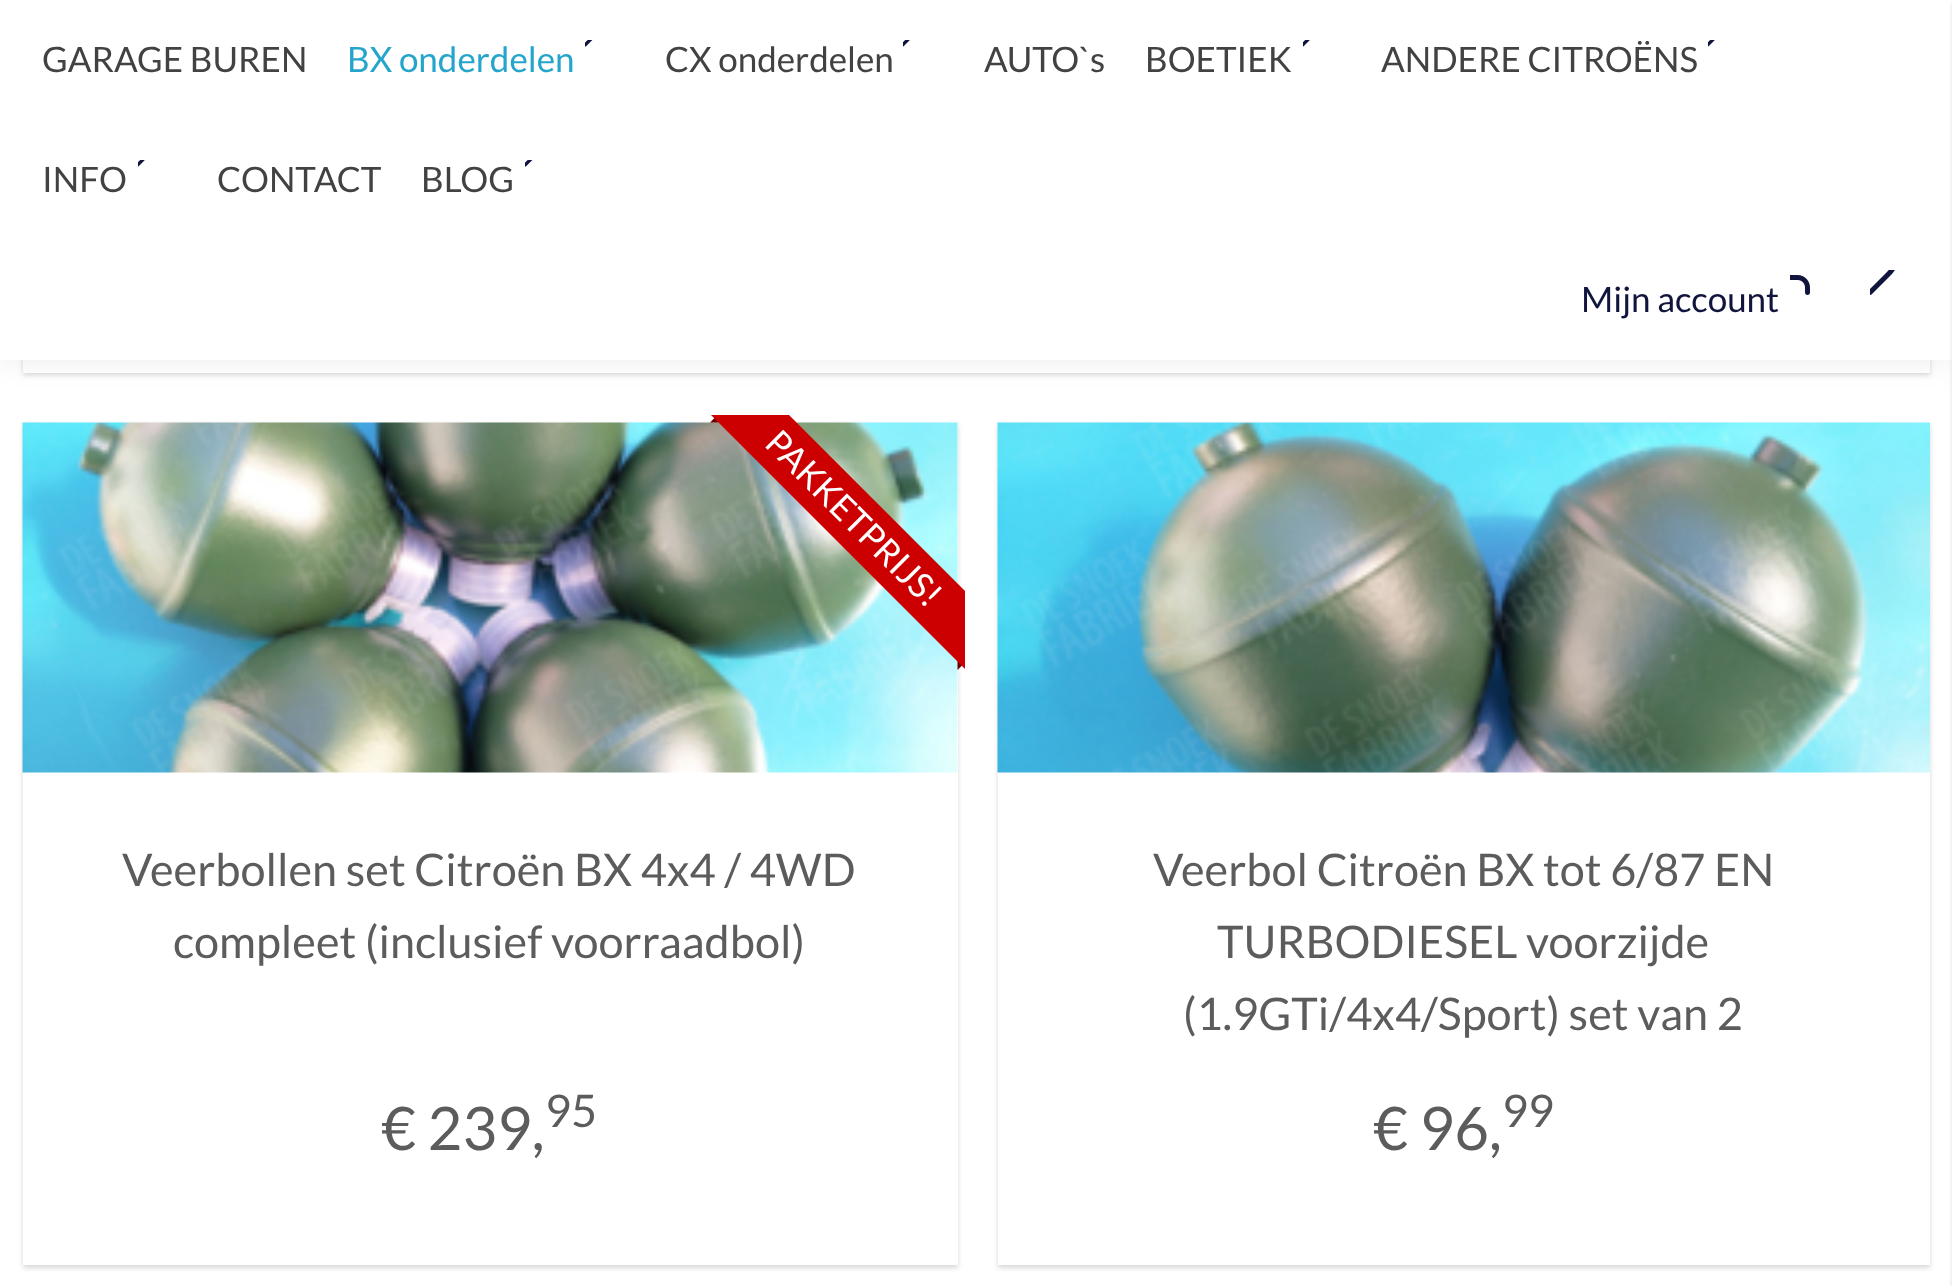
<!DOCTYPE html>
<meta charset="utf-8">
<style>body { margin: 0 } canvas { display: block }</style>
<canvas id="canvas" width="1952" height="1286"></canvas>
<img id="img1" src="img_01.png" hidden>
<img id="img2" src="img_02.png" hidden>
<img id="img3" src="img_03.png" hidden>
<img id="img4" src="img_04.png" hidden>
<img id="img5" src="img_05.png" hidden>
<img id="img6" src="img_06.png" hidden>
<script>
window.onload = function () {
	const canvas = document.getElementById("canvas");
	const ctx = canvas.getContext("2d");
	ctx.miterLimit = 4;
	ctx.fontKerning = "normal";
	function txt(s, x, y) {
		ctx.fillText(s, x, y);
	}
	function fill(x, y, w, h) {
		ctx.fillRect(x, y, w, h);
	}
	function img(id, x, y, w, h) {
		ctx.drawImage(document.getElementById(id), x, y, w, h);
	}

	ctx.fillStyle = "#FFFFFF";
	fill(0, 0, 1952, 1286);
	ctx.fillStyle = "rgba(0, 0, 0, 0.08)";
	ctx.filter = "blur(15px)";
	ctx.beginPath();
	ctx.rect(0, 0, 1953, 360);
	ctx.fill();
	ctx.filter = "none";
	ctx.save();
	ctx.beginPath();
	ctx.moveTo(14, 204);
	ctx.lineTo(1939, 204);
	ctx.lineTo(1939, 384);
	ctx.lineTo(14, 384);
	ctx.closePath();
	ctx.moveTo(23, 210);
	ctx.lineTo(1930, 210);
	ctx.lineTo(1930, 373);
	ctx.lineTo(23, 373);
	ctx.closePath();
	ctx.clip("evenodd");
	ctx.fillStyle = "rgba(0, 0, 0, 0.15)";
	ctx.filter = "blur(2.5px)";
	ctx.beginPath();
	ctx.rect(23, 213, 1907, 162);
	ctx.fill();
	ctx.filter = "none";
	ctx.restore();
	ctx.fillStyle = "#FFFFFF";
	fill(0, 0, 1952, 360);
	img("img1", 585, 40, 8, 7);
	img("img2", 903, 40, 7, 7);
	img("img2", 1303, 40, 7, 7);
	img("img2", 1708, 40, 7, 7);
	img("img2", 138, 160, 7, 7);
	img("img1", 525, 160, 8, 7);
	img("img3", 1870, 270, 25, 25);
	ctx.fillStyle = "rgba(0, 0, 0, 0.2)";
	ctx.filter = "blur(2.5px)";
	ctx.beginPath();
	ctx.rect(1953, 3, 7, 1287);
	ctx.fill();
	ctx.filter = "none";
	img("img4", 1790, 275, 20, 20);
	ctx.save();
	ctx.beginPath();
	ctx.moveTo(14, 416);
	ctx.lineTo(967, 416);
	ctx.lineTo(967, 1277);
	ctx.lineTo(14, 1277);
	ctx.closePath();
	ctx.moveTo(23, 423);
	ctx.lineTo(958, 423);
	ctx.lineTo(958, 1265);
	ctx.lineTo(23, 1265);
	ctx.closePath();
	ctx.clip("evenodd");
	ctx.fillStyle = "rgba(0, 0, 0, 0.15)";
	ctx.filter = "blur(2.5px)";
	ctx.beginPath();
	ctx.rect(23, 425, 935, 843);
	ctx.fill();
	ctx.filter = "none";
	ctx.restore();
	img("img5", 22, 422, 936, 351);
	ctx.fillStyle = "#660000";
	ctx.beginPath();
	ctx.moveTo(725, 422.5);
	ctx.lineTo(710, 422.5);
	ctx.lineTo(717.5, 415);
	ctx.closePath();
	ctx.fill();
	ctx.beginPath();
	ctx.moveTo(957.5, 670);
	ctx.lineTo(957.5, 655);
	ctx.lineTo(965, 662.5);
	ctx.closePath();
	ctx.fill();
	ctx.save();
	ctx.beginPath();
	ctx.rect(665, 415, 300, 300);
	ctx.clip();
	ctx.fillStyle = "#CC0000";
	ctx.beginPath();
	ctx.moveTo(741, 367);
	ctx.lineTo(1006, 632);
	ctx.lineTo(967, 671);
	ctx.lineTo(702, 406);
	ctx.closePath();
	ctx.fill();
	ctx.restore();
	ctx.save();
	ctx.beginPath();
	ctx.moveTo(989, 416);
	ctx.lineTo(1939, 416);
	ctx.lineTo(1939, 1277);
	ctx.lineTo(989, 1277);
	ctx.closePath();
	ctx.moveTo(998, 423);
	ctx.lineTo(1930, 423);
	ctx.lineTo(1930, 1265);
	ctx.lineTo(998, 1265);
	ctx.closePath();
	ctx.clip("evenodd");
	ctx.fillStyle = "rgba(0, 0, 0, 0.15)";
	ctx.filter = "blur(2.5px)";
	ctx.beginPath();
	ctx.rect(998, 425, 932, 843);
	ctx.fill();
	ctx.filter = "none";
	ctx.restore();
	img("img6", 997, 422, 933, 351);
	ctx.font = "35px Lato";
	ctx.fillStyle = "#424242";
	txt("GARAGE BUREN", 42, 72);
	ctx.fillStyle = "#25A5CC";
	txt("BX onderdelen", 347, 72);
	ctx.fillStyle = "#424242";
	txt("CX onderdelen", 665, 72);
	txt("AUTO`s", 984, 72);
	txt("BOETIEK", 1145, 72);
	txt("ANDERE CITROËNS", 1381, 72);
	txt("INFO", 42, 192);
	txt("CONTACT", 217, 192);
	txt("BLOG", 421, 192);
	ctx.fillStyle = "#11153D";
	txt("Mijn account", 1581, 312);
	ctx.fillStyle = "#FFFFFF";
	ctx.save();
	ctx.translate(763, 445);
	ctx.rotate(45 * Math.PI / 180);
	ctx.fillText("PAKKETPRIJS!", 0, 0);
	ctx.restore();
	ctx.font = "45px Lato";
	ctx.fillStyle = "#5C5C5C";
	txt("Veerbollen set Citroën BX 4x4 / 4WD", 122, 886);
	txt("compleet (inclusief voorraadbol)", 173, 958);
	ctx.font = "60px Lato";
	txt("€ 239,", 381, 1150);
	ctx.font = "45px Lato";
	txt("95", 545, 1127);
	txt("Veerbol Citroën BX tot 6/87 EN", 1153, 886);
	txt("TURBODIESEL voorzijde", 1217, 958);
	txt("(1.9GTi/4x4/Sport) set van 2", 1183, 1030);
	ctx.font = "60px Lato";
	txt("€ 96,", 1373, 1150);
	ctx.font = "45px Lato";
	txt("99", 1502, 1127);
};
</script>
